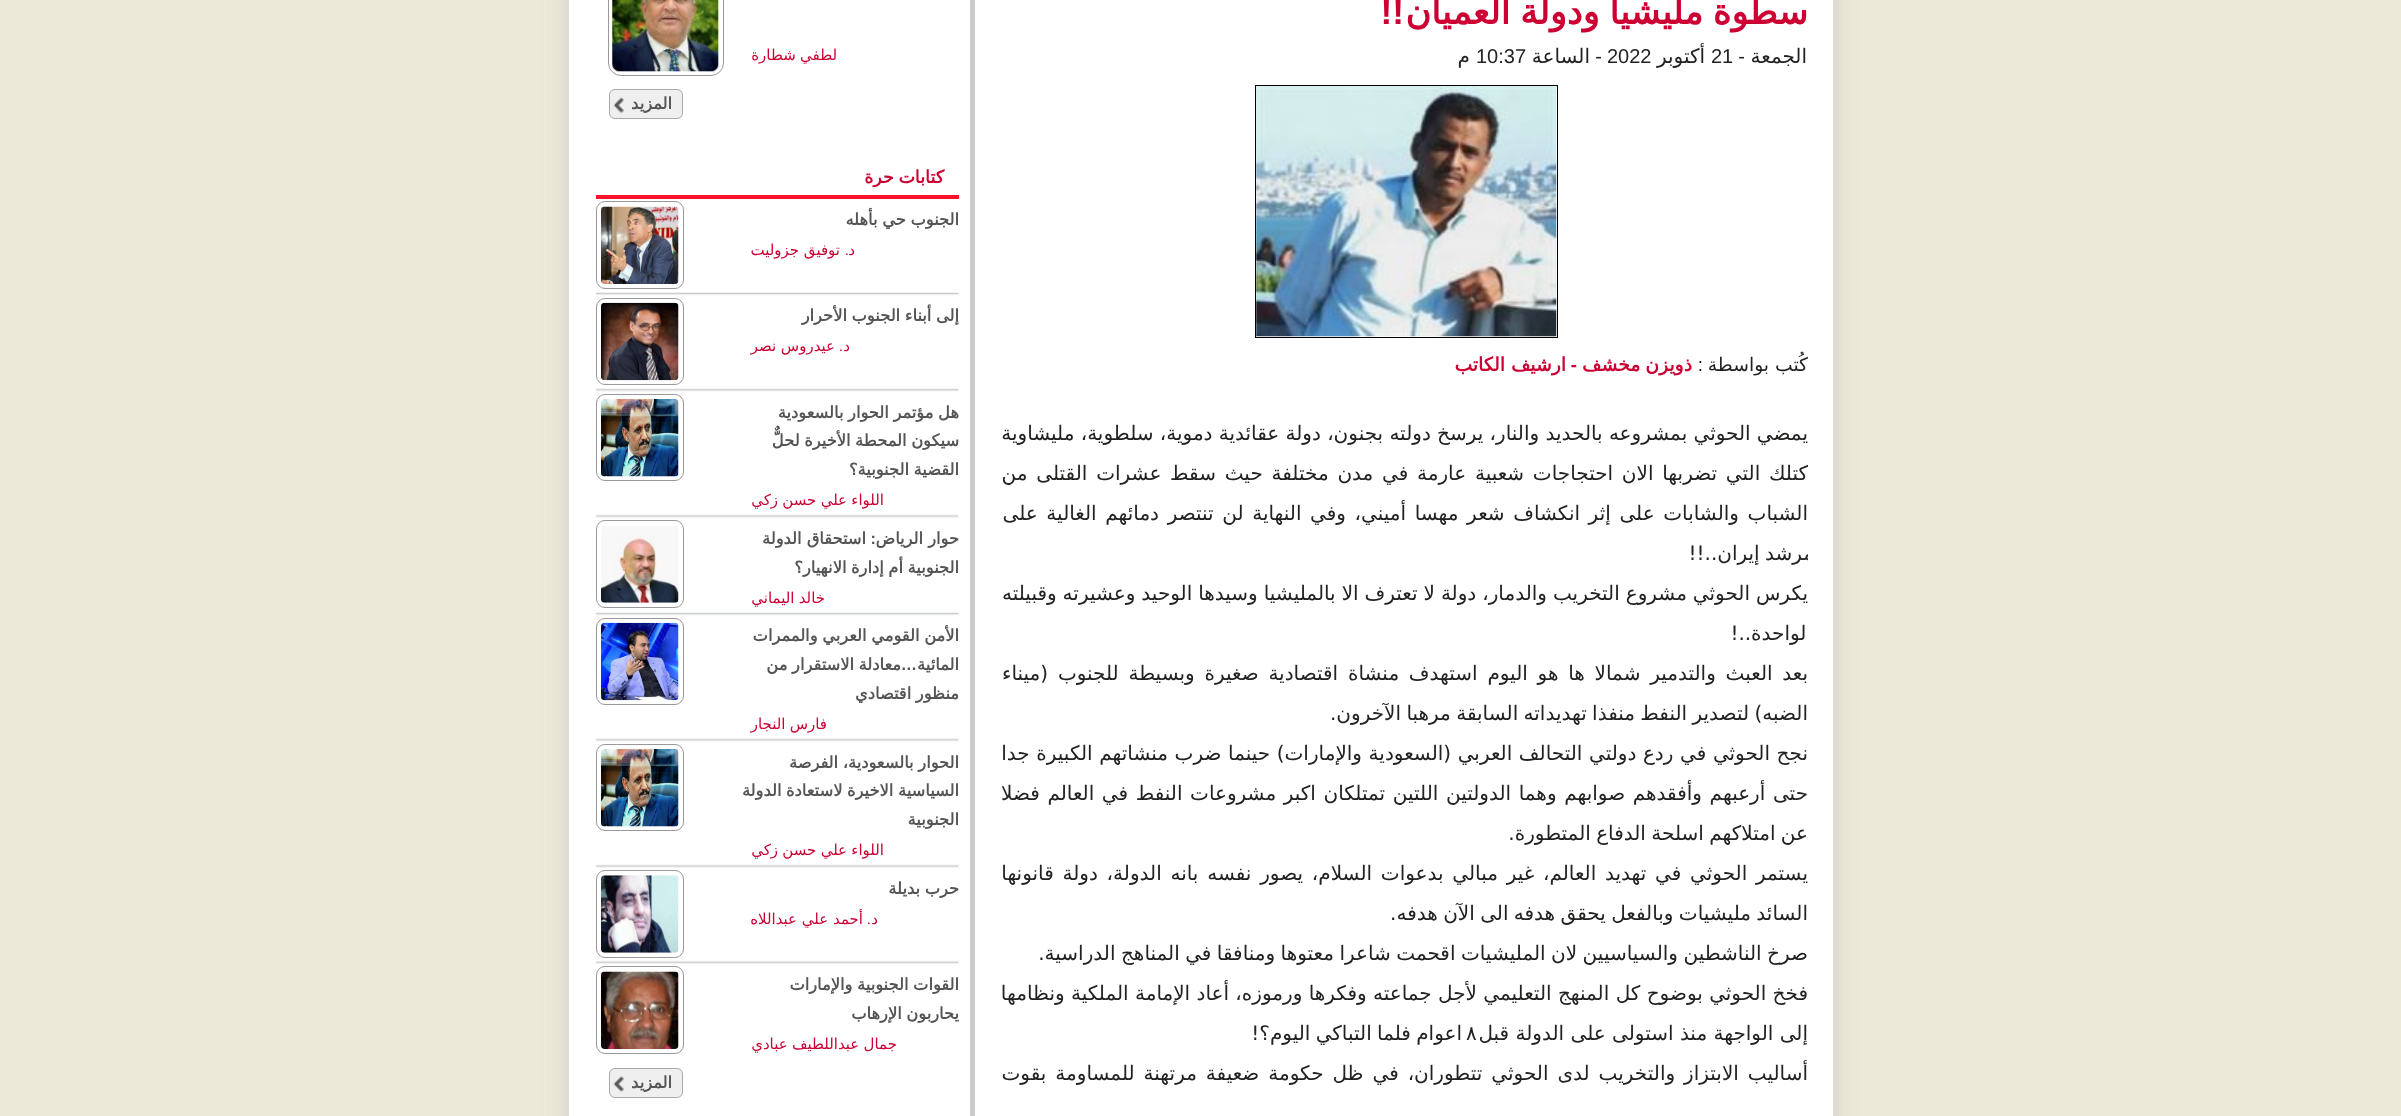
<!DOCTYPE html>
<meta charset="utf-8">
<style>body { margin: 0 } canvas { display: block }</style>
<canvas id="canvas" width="2401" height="1116"></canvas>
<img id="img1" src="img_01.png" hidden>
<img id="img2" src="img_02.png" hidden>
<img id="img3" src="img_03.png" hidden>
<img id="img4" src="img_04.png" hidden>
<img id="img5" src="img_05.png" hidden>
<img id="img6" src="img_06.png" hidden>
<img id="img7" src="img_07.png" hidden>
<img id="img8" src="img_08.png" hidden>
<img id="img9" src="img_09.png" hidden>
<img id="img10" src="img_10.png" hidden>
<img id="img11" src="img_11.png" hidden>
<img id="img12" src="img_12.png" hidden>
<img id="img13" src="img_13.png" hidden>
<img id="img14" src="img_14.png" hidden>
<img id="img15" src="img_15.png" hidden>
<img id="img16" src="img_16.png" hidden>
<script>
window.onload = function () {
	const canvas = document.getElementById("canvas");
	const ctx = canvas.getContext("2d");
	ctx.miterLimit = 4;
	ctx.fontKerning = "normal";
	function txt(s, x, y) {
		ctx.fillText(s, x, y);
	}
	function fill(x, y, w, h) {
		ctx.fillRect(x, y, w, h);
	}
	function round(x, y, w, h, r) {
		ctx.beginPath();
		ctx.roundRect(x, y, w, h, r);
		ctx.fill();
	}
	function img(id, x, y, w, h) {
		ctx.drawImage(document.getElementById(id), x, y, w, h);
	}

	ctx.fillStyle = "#ECE9D8";
	fill(0, 0, 2401, 1116);
	ctx.fillStyle = "#CCCCCC";
	ctx.filter = "blur(12.5px)";
	ctx.beginPath();
	ctx.rect(569, -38, 1264, 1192);
	ctx.fill();
	ctx.filter = "none";
	ctx.fillStyle = "#FFFFFF";
	fill(569, 0, 1264, 1116);
	ctx.strokeStyle = "#000000";
	ctx.strokeRect(1255.5, 85.5, 302, 252);
	img("img1", 1256, 86, 301, 251);
	ctx.fillStyle = "#CCCCCC";
	fill(970, 0, 5, 1116);
	ctx.beginPath();
	ctx.roundRect(608.5, -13.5, 115, 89, 12.5);
	ctx.strokeStyle = "#999999";
	ctx.stroke();
	img("img2", 612, 0, 107, 72);
	ctx.fillStyle = "#EFEFEF";
	round(609, 89, 74, 30, 6);
	img("img3", 613, 97, 11, 16);
	ctx.beginPath();
	ctx.roundRect(609.5, 89.5, 73, 29, 5.5);
	ctx.strokeStyle = "#AAAAAA";
	ctx.stroke();
	ctx.fillStyle = "#FE112D";
	fill(596, 195, 363, 4);
	img("img4", 596, 292, 363, 4);
	ctx.beginPath();
	ctx.roundRect(596.5, 201.5, 87, 87, 8.5);
	ctx.strokeStyle = "#999999";
	ctx.stroke();
	img("img5", 601, 206, 78, 78);
	img("img6", 596, 388, 363, 4);
	ctx.beginPath();
	ctx.roundRect(596.5, 298.5, 87, 86, 8.5);
	ctx.stroke();
	img("img7", 601, 302, 78, 79);
	img("img8", 596, 514, 363, 4);
	ctx.beginPath();
	ctx.roundRect(596.5, 394.5, 87, 86, 8.5);
	ctx.stroke();
	img("img9", 601, 399, 78, 78);
	img("img10", 596, 612, 363, 4);
	ctx.beginPath();
	ctx.roundRect(596.5, 520.5, 87, 87, 8.5);
	ctx.stroke();
	img("img11", 601, 526, 78, 77);
	img("img6", 596, 738, 363, 4);
	ctx.beginPath();
	ctx.roundRect(596.5, 618.5, 87, 86, 8.5);
	ctx.stroke();
	img("img12", 601, 622, 78, 79);
	img("img8", 596, 864, 363, 4);
	ctx.beginPath();
	ctx.roundRect(596.5, 744.5, 87, 86, 8.5);
	ctx.stroke();
	img("img9", 601, 749, 78, 78);
	img("img13", 596, 960, 363, 4);
	ctx.beginPath();
	ctx.roundRect(596.5, 870.5, 87, 87, 8.5);
	ctx.stroke();
	img("img14", 601, 875, 78, 78);
	ctx.beginPath();
	ctx.roundRect(596.5, 966.5, 87, 87, 8.5);
	ctx.stroke();
	img("img15", 601, 971, 78, 78);
	ctx.fillStyle = "#EFEFEF";
	round(609, 1068, 74, 30, 6);
	img("img16", 613, 1076, 11, 16);
	ctx.beginPath();
	ctx.roundRect(609.5, 1068.5, 73, 29, 5.5);
	ctx.strokeStyle = "#AAAAAA";
	ctx.stroke();
	ctx.save();
	ctx.beginPath();
	ctx.rect(993, 0, 815, 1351);
	ctx.clip();
	ctx.wordSpacing = "-1.5px";
	ctx.direction = "rtl";
	ctx.font = "bold 35.25px DejaVu Sans";
	ctx.fillStyle = "#CC0033";
	txt("سطوة مليشيا ودولة العميان", 1808, 24);
	ctx.restore();
	ctx.direction = "rtl";
	ctx.font = "bold 35.25px Liberation Sans";
	ctx.fillStyle = "#CC0033";
	txt("!!", 1404, 24);
	ctx.font = "20px DejaVu Sans";
	ctx.fillStyle = "#222221";
	txt("الجمعة", 1807, 63);
	ctx.font = "20px Liberation Sans";
	txt("-", 1745, 63);
	ctx.direction = "ltr";
	txt("21", 1711, 63);
	ctx.direction = "rtl";
	ctx.font = "20px DejaVu Sans";
	txt("أكتوبر", 1705, 63);
	ctx.direction = "ltr";
	ctx.font = "20px Liberation Sans";
	txt("2022", 1607, 63);
	ctx.direction = "rtl";
	txt("-", 1602, 63);
	ctx.font = "20px DejaVu Sans";
	txt("الساعة", 1590, 63);
	ctx.direction = "ltr";
	ctx.font = "20px Liberation Sans";
	txt("10:37", 1476, 63);
	ctx.direction = "rtl";
	ctx.font = "20px DejaVu Sans";
	txt("م", 1470, 63);
	ctx.font = "18.75px DejaVu Sans";
	txt("كُتب بواسطة", 1808, 371);
	ctx.font = "18.75px Liberation Sans";
	txt(":", 1703, 371);
	ctx.wordSpacing = "-1px";
	ctx.font = "bold 18.75px DejaVu Sans";
	ctx.fillStyle = "#CC0033";
	txt("ذويزن مخشف", 1692, 371);
	ctx.wordSpacing = "0px";
	ctx.font = "bold 18.75px Liberation Sans";
	txt("-", 1577, 371);
	ctx.font = "bold 18.75px DejaVu Sans";
	txt("ارشيف الكاتب", 1566, 371);
	ctx.wordSpacing = "-0.1px";
	ctx.font = "20px DejaVu Sans";
	ctx.fillStyle = "#222221";
	txt("يمضي الحوثي بمشروعه بالحديد والنار، يرسخ دولته بجنون، دولة عقائدية دموية، سلطوية، مليشاوية", 1808, 440);
	ctx.wordSpacing = "2.4px";
	txt("كتلك التي تضربها الان احتجاجات شعبية عارمة في مدن مختلفة حيث سقط عشرات القتلى من", 1808, 480);
	ctx.wordSpacing = "2.25px";
	txt("الشباب والشابات على إثر انكشاف شعر مهسا أميني، وفي النهاية لن تنتصر دمائهم الغالية على", 1808, 520);
	ctx.save();
	ctx.beginPath();
	ctx.rect(993, 0, 815, 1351);
	ctx.clip();
	ctx.wordSpacing = "-1px";
	txt("مرشد إيران..!!", 1814, 560);
	ctx.wordSpacing = "-0.4px";
	txt("يكرس الحوثي مشروع التخريب والدمار، دولة لا تعترف الا بالمليشيا وسيدها الوحيد وعشيرته وقبيلته", 1808, 600);
	ctx.wordSpacing = "0px";
	txt("الواحدة..!", 1812, 640);
	ctx.restore();
	ctx.wordSpacing = "3.4px";
	txt("بعد العبث والتدمير شمالا ها هو اليوم استهدف منشاة اقتصادية صغيرة وبسيطة للجنوب (ميناء", 1808, 680);
	ctx.save();
	ctx.beginPath();
	ctx.rect(993, 0, 815, 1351);
	ctx.clip();
	ctx.wordSpacing = "-1px";
	txt("الضبه) لتصدير النفط منفذا تهديداته السابقة مرهبا الآخرون.", 1808, 720);
	ctx.restore();
	ctx.wordSpacing = "0.25px";
	txt("نجح الحوثي في ردع دولتي التحالف العربي (السعودية والإمارات) حينما ضرب منشاتهم الكبيرة جدا", 1808, 760);
	ctx.wordSpacing = "1.25px";
	txt("حتى أرعبهم وأفقدهم صوابهم وهما الدولتين اللتين تمتلكان اكبر مشروعات النفط في العالم فضلا", 1808, 800);
	ctx.save();
	ctx.beginPath();
	ctx.rect(993, 0, 815, 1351);
	ctx.clip();
	ctx.wordSpacing = "-1px";
	txt("عن امتلاكهم اسلحة الدفاع المتطورة.", 1808, 840);
	ctx.restore();
	ctx.wordSpacing = "2.4px";
	txt("يستمر الحوثي في تهديد العالم، غير مبالي بدعوات السلام، يصور نفسه بانه الدولة، دولة قانونها", 1808, 880);
	ctx.save();
	ctx.beginPath();
	ctx.rect(993, 0, 815, 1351);
	ctx.clip();
	ctx.wordSpacing = "-1px";
	txt("السائد مليشيات وبالفعل يحقق هدفه الى الآن هدفه.", 1808, 920);
	ctx.wordSpacing = "-0.9px";
	txt("صرخ الناشطين والسياسيين لان المليشيات اقحمت شاعرا معتوها ومنافقا في المناهج الدراسية.", 1808, 960);
	ctx.restore();
	ctx.wordSpacing = "0px";
	txt("فخخ الحوثي بوضوح كل المنهج التعليمي لأجل جماعته وفكرها ورموزه، أعاد الإمامة الملكية ونظامها", 1808, 1000);
	txt("إلى الواجهة منذ استولى على الدولة قبل", 1808, 1040);
	ctx.direction = "ltr";
	txt("٨", 1466, 1040);
	ctx.wordSpacing = "-1px";
	ctx.direction = "rtl";
	txt("اعوام فلما التباكي اليوم؟!", 1462, 1040);
	ctx.wordSpacing = "2.6px";
	txt("أساليب الابتزاز والتخريب لدى الحوثي تتطوران، في ظل حكومة ضعيفة مرتهنة للمساومة بقوت", 1808, 1080);
	ctx.wordSpacing = "-0.5px";
	ctx.font = "15px DejaVu Sans";
	ctx.fillStyle = "#CC0033";
	txt("لطفي شطارة", 837, 60);
	ctx.wordSpacing = "0px";
	ctx.font = "bold 16.25px DejaVu Sans";
	ctx.fillStyle = "#555555";
	txt("المزيد", 672, 109);
	ctx.wordSpacing = "-1px";
	ctx.font = "bold 17.5px DejaVu Sans";
	ctx.fillStyle = "#CC0033";
	txt("كتابات حرة", 944, 183);
	ctx.wordSpacing = "-0.5px";
	ctx.font = "bold 16.25px DejaVu Sans";
	ctx.fillStyle = "#555555";
	txt("الجنوب حي بأهله", 959, 225);
	ctx.wordSpacing = "0px";
	ctx.font = "15px DejaVu Sans";
	ctx.fillStyle = "#CC0033";
	txt("د", 855, 255);
	ctx.font = "15px Liberation Sans";
	txt(".", 849, 255);
	ctx.font = "15px DejaVu Sans";
	txt("توفيق جزوليت", 840, 255);
	ctx.save();
	ctx.beginPath();
	ctx.rect(596, 295, 363, 96);
	ctx.clip();
	ctx.wordSpacing = "-0.5px";
	ctx.font = "bold 16.25px DejaVu Sans";
	ctx.fillStyle = "#555555";
	txt("إلى أبناء الجنوب الأحرار", 959, 321);
	ctx.restore();
	txt("د", 850, 351);
	ctx.font = "15px Liberation Sans";
	txt(".", 843, 351);
	ctx.font = "15px DejaVu Sans";
	txt("عيدروس نصر", 835, 351);
	ctx.save();
	ctx.beginPath();
	ctx.rect(596, 391, 363, 127);
	ctx.clip();
	ctx.wordSpacing = "-0.5px";
	ctx.font = "bold 16.25px DejaVu Sans";
	ctx.fillStyle = "#555555";
	txt("هل مؤتمر الحوار بالسعودية", 959, 418);
	txt("سيكون المحطة الأخيرة لحلٌّ", 959, 446);
	ctx.restore();
	ctx.wordSpacing = "-0.5px";
	ctx.font = "bold 16.25px DejaVu Sans";
	ctx.fillStyle = "#555555";
	txt("القضية الجنوبية؟", 959, 475);
	ctx.font = "15px DejaVu Sans";
	ctx.fillStyle = "#CC0033";
	txt("اللواء علي حسن زكي", 884, 505);
	ctx.wordSpacing = "0px";
	ctx.font = "bold 16.25px DejaVu Sans";
	ctx.fillStyle = "#555555";
	txt("حوار الرياض", 959, 544);
	ctx.font = "bold 16.25px Liberation Sans";
	txt(":", 876, 544);
	ctx.font = "bold 16.25px DejaVu Sans";
	txt("استحقاق الدولة", 866, 544);
	ctx.save();
	ctx.beginPath();
	ctx.rect(596, 518, 363, 97);
	ctx.clip();
	ctx.wordSpacing = "-0.5px";
	txt("الجنوبية أم إدارة الانهيار؟", 959, 573);
	ctx.restore();
	ctx.wordSpacing = "-0.5px";
	ctx.font = "15px DejaVu Sans";
	ctx.fillStyle = "#CC0033";
	txt("خالد اليماني", 825, 603);
	ctx.save();
	ctx.beginPath();
	ctx.rect(596, 615, 363, 126);
	ctx.clip();
	ctx.font = "bold 16.25px DejaVu Sans";
	ctx.fillStyle = "#555555";
	txt("الأمن القومي العربي والممرات", 959, 641);
	ctx.restore();
	ctx.wordSpacing = "0px";
	ctx.font = "bold 16.25px DejaVu Sans";
	ctx.fillStyle = "#555555";
	txt("المائية", 959, 670);
	ctx.font = "bold 16.25px Liberation Sans";
	txt("…", 917, 670);
	ctx.wordSpacing = "-0.5px";
	ctx.font = "bold 16.25px DejaVu Sans";
	txt("معادلة الاستقرار من", 901, 670);
	txt("منظور اقتصادي", 959, 699);
	ctx.font = "15px DejaVu Sans";
	ctx.fillStyle = "#CC0033";
	txt("فارس النجار", 827, 729);
	ctx.font = "bold 16.25px DejaVu Sans";
	ctx.fillStyle = "#555555";
	txt("الحوار بالسعودية، الفرصة", 959, 768);
	ctx.save();
	ctx.beginPath();
	ctx.rect(596, 741, 363, 127);
	ctx.clip();
	txt("السياسية الاخيرة لاستعادة الدولة", 959, 796);
	ctx.restore();
	ctx.wordSpacing = "0px";
	txt("الجنوبية", 959, 825);
	ctx.wordSpacing = "-0.5px";
	ctx.font = "15px DejaVu Sans";
	ctx.fillStyle = "#CC0033";
	txt("اللواء علي حسن زكي", 884, 855);
	ctx.font = "bold 16.25px DejaVu Sans";
	ctx.fillStyle = "#555555";
	txt("حرب بديلة", 959, 894);
	ctx.wordSpacing = "0px";
	ctx.font = "15px DejaVu Sans";
	ctx.fillStyle = "#CC0033";
	txt("د", 878, 924);
	ctx.font = "15px Liberation Sans";
	txt(".", 871, 924);
	ctx.font = "15px DejaVu Sans";
	txt("أحمد علي عبداللاه", 863, 924);
	ctx.wordSpacing = "-0.5px";
	ctx.font = "bold 16.25px DejaVu Sans";
	ctx.fillStyle = "#555555";
	txt("القوات الجنوبية والإمارات", 959, 990);
	txt("يحاربون الإرهاب", 959, 1019);
	ctx.font = "15px DejaVu Sans";
	ctx.fillStyle = "#CC0033";
	txt("جمال عبداللطيف عبادي", 897, 1049);
	ctx.wordSpacing = "0px";
	ctx.font = "bold 16.25px DejaVu Sans";
	ctx.fillStyle = "#555555";
	txt("المزيد", 672, 1088);
};
</script>
